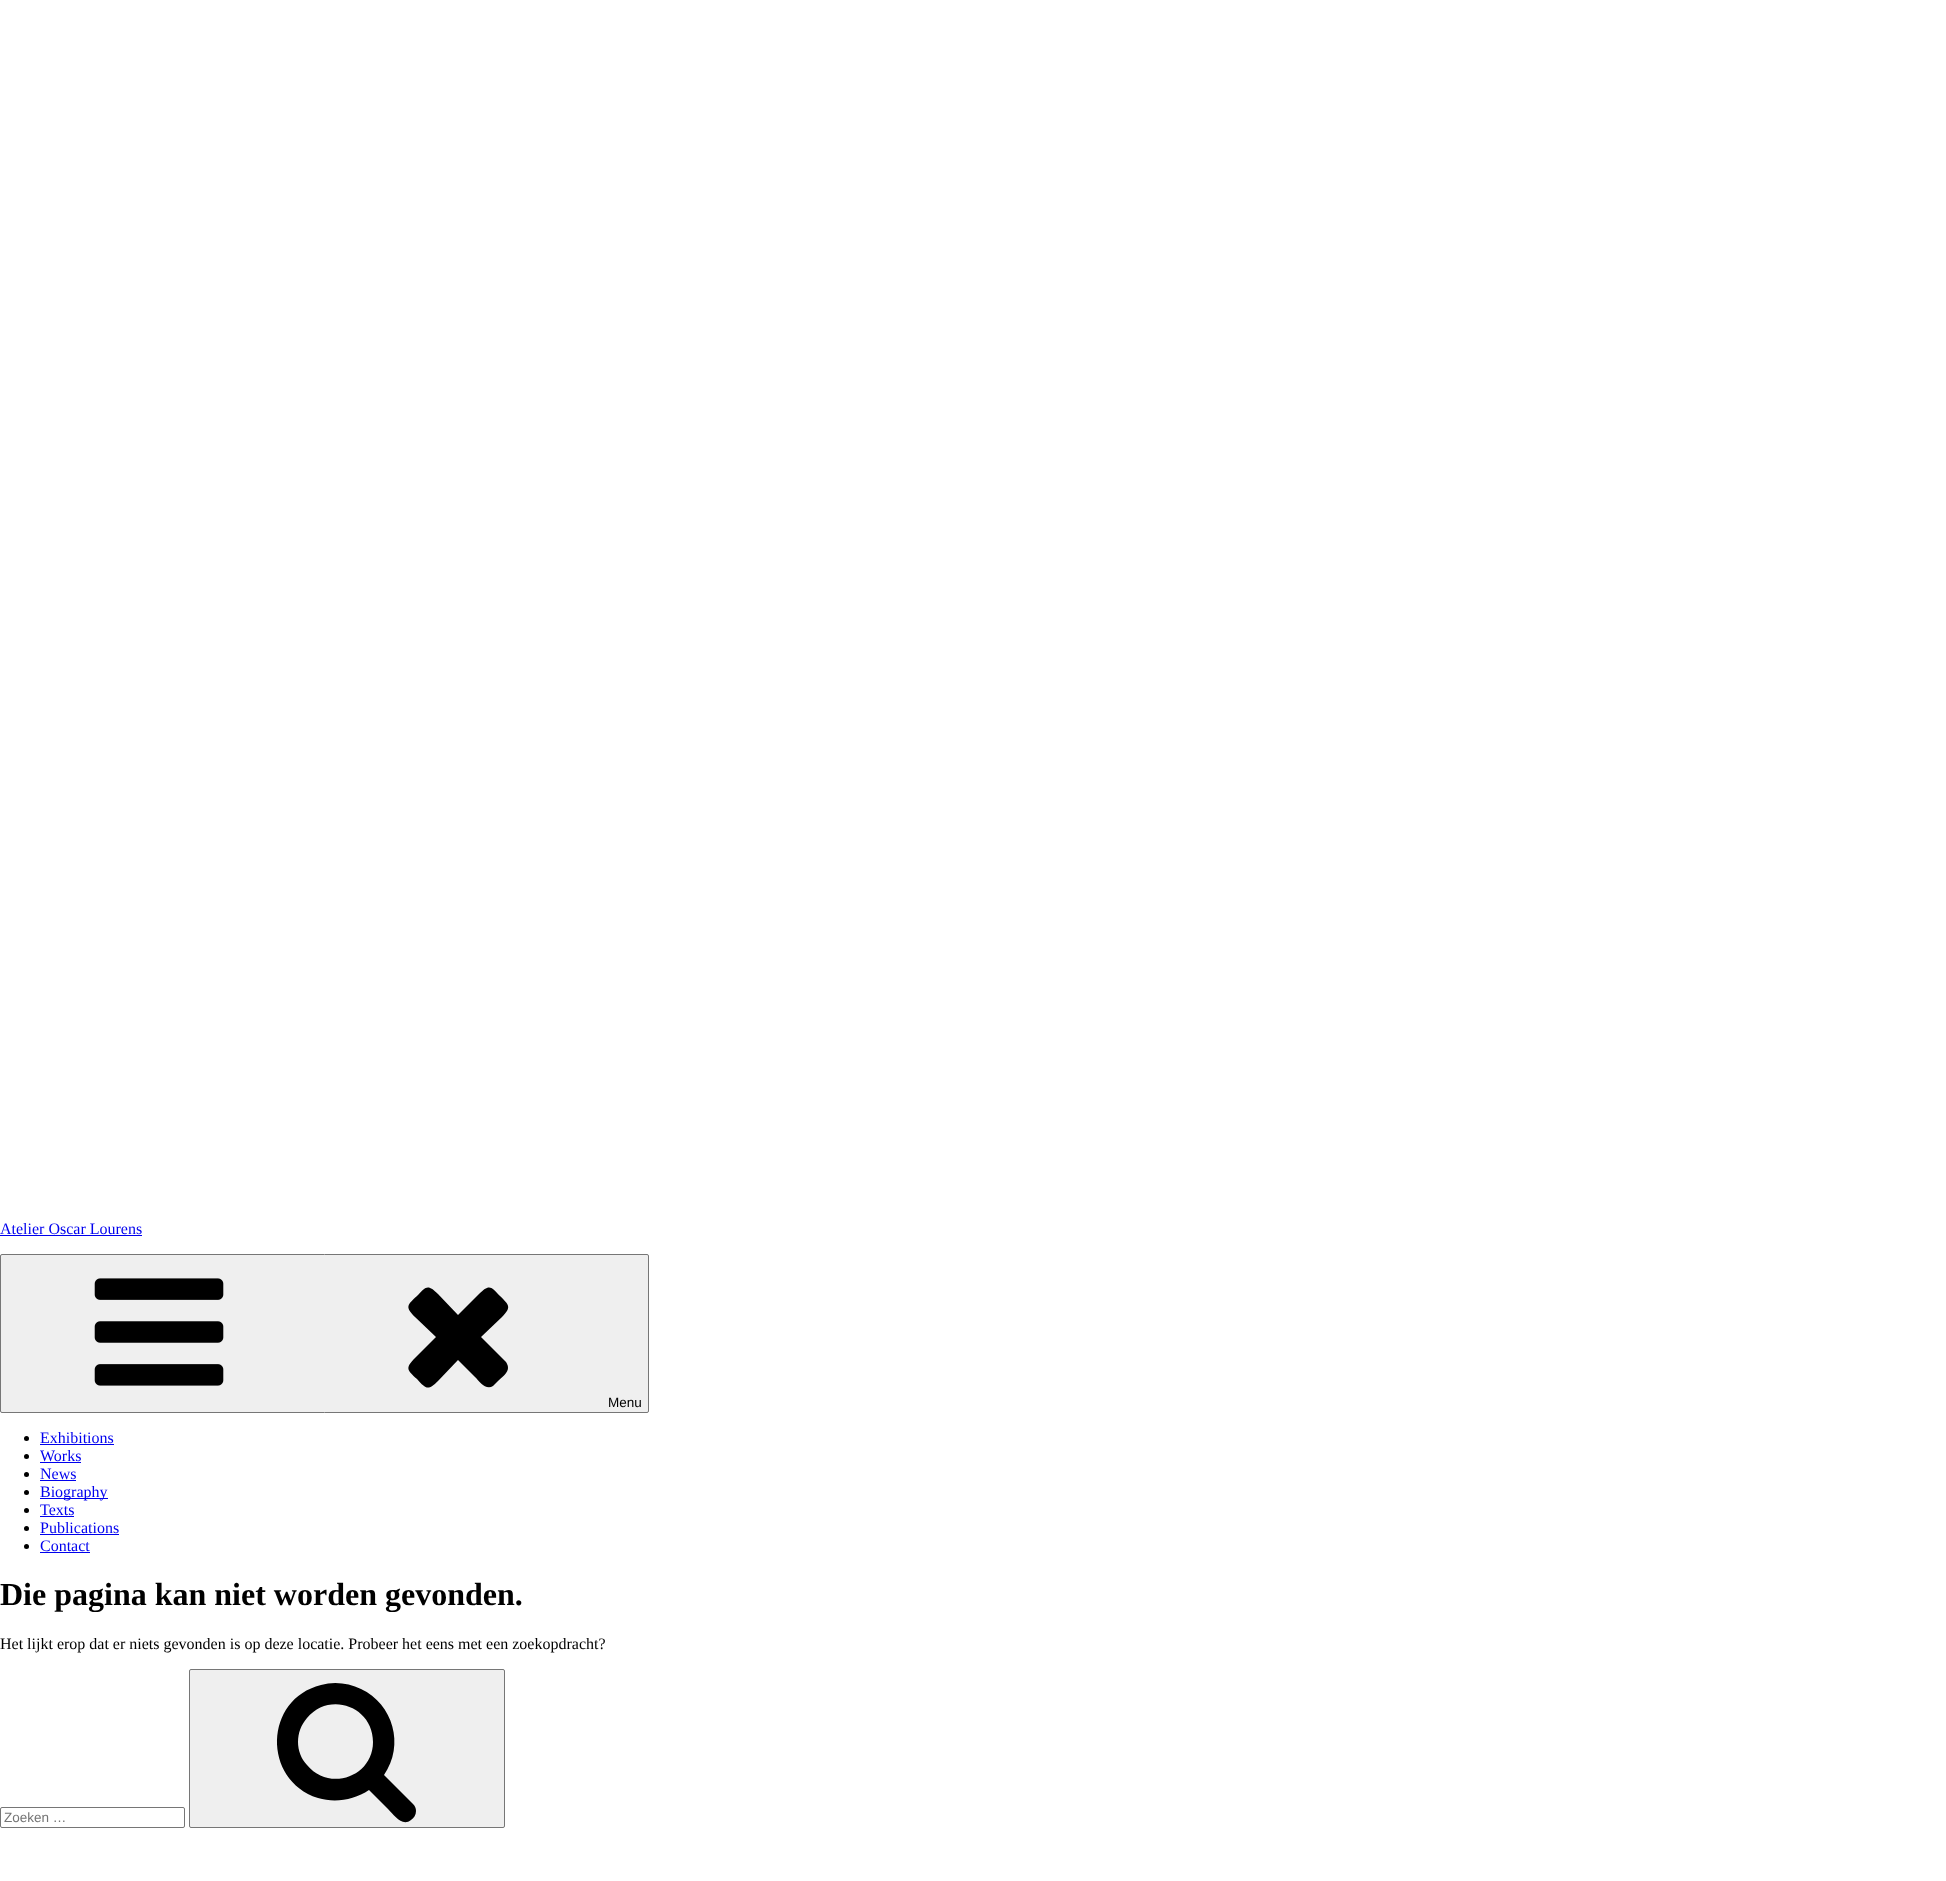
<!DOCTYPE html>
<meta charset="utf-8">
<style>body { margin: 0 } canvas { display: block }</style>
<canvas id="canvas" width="1946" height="1881"></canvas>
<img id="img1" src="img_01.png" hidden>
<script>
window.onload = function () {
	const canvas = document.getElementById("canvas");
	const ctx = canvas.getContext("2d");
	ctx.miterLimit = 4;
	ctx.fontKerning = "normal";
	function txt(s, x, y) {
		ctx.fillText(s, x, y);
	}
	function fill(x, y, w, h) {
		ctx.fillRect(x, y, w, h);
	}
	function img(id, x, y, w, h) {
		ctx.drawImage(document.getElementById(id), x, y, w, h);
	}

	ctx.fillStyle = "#FFFFFF";
	fill(0, 0, 1946, 1881);
	ctx.fillStyle = "#0000EE";
	fill(0, 1235, 142, 1);
	ctx.fillStyle = "#EFEFEF";
	ctx.beginPath();
	ctx.roundRect(0.5, 1254.5, 648, 158, 1.5);
	ctx.fill();
	ctx.strokeStyle = "#767676";
	ctx.stroke();
	img("img1", 94, 1278, 130, 108);
	ctx.fillStyle = "#000000";
	ctx.beginPath();
	ctx.moveTo(508, 1368);
	ctx.bezierCurveTo(508, 1373, 502, 1377, 498, 1381);
	ctx.lineTo(493, 1386);
	ctx.bezierCurveTo(486, 1391, 479, 1381, 475, 1377);
	ctx.lineTo(458, 1360);
	ctx.lineTo(438, 1381);
	ctx.bezierCurveTo(428, 1391, 426, 1389, 417, 1379);
	ctx.bezierCurveTo(407, 1370, 405, 1368, 415, 1358);
	ctx.lineTo(436, 1337);
	ctx.lineTo(415, 1317);
	ctx.bezierCurveTo(405, 1307, 407, 1305, 417, 1296);
	ctx.bezierCurveTo(426, 1286, 428, 1284, 438, 1294);
	ctx.lineTo(458, 1315);
	ctx.lineTo(479, 1294);
	ctx.bezierCurveTo(489, 1284, 491, 1286, 500, 1296);
	ctx.bezierCurveTo(509, 1305, 512, 1307, 502, 1317);
	ctx.lineTo(481, 1337);
	ctx.lineTo(506, 1362);
	ctx.bezierCurveTo(507, 1364, 508, 1365, 508, 1368);
	ctx.closePath();
	ctx.fill();
	ctx.beginPath();
	ctx.arc(26.5, 1438.5, 2.5, 0, Math.PI * 2);
	ctx.fill();
	ctx.fillStyle = "#0000EE";
	fill(40, 1444, 74, 1);
	ctx.fillStyle = "#000000";
	ctx.beginPath();
	ctx.arc(26.5, 1456.5, 2.5, 0, Math.PI * 2);
	ctx.fill();
	ctx.fillStyle = "#0000EE";
	fill(40, 1462, 41, 1);
	ctx.fillStyle = "#000000";
	ctx.beginPath();
	ctx.arc(26.5, 1474.5, 2.5, 0, Math.PI * 2);
	ctx.fill();
	ctx.fillStyle = "#0000EE";
	fill(40, 1480, 36, 1);
	ctx.fillStyle = "#000000";
	ctx.beginPath();
	ctx.arc(26.5, 1492.5, 2.5, 0, Math.PI * 2);
	ctx.fill();
	ctx.fillStyle = "#0000EE";
	fill(40, 1498, 68, 1);
	ctx.fillStyle = "#000000";
	ctx.beginPath();
	ctx.arc(26.5, 1510.5, 2.5, 0, Math.PI * 2);
	ctx.fill();
	ctx.fillStyle = "#0000EE";
	fill(40, 1516, 34, 1);
	ctx.fillStyle = "#000000";
	ctx.beginPath();
	ctx.arc(26.5, 1528.5, 2.5, 0, Math.PI * 2);
	ctx.fill();
	ctx.fillStyle = "#0000EE";
	fill(40, 1534, 79, 1);
	ctx.fillStyle = "#000000";
	ctx.beginPath();
	ctx.arc(26.5, 1546.5, 2.5, 0, Math.PI * 2);
	ctx.fill();
	ctx.fillStyle = "#0000EE";
	fill(40, 1552, 50, 1);
	ctx.beginPath();
	ctx.roundRect(0.5, 1807.5, 184, 20, 1.5);
	ctx.stroke();
	ctx.fillStyle = "#EFEFEF";
	ctx.beginPath();
	ctx.roundRect(189.5, 1669.5, 315, 158, 1.5);
	ctx.fill();
	ctx.stroke();
	ctx.fillStyle = "#000000";
	ctx.beginPath();
	ctx.moveTo(373, 1742);
	ctx.bezierCurveTo(373, 1706, 329, 1691, 307, 1718);
	ctx.bezierCurveTo(301, 1725, 298, 1733, 298, 1742);
	ctx.bezierCurveTo(298, 1750, 301, 1759, 307, 1765);
	ctx.bezierCurveTo(329, 1792, 373, 1777, 373, 1742);
	ctx.closePath();
	ctx.moveTo(416, 1811);
	ctx.bezierCurveTo(416, 1815, 414, 1818, 411, 1820);
	ctx.bezierCurveTo(402, 1827, 394, 1815, 388, 1809);
	ctx.lineTo(369, 1790);
	ctx.bezierCurveTo(354, 1800, 335, 1803, 318, 1798);
	ctx.bezierCurveTo(262, 1780, 264, 1699, 321, 1685);
	ctx.bezierCurveTo(334, 1681, 349, 1683, 361, 1689);
	ctx.bezierCurveTo(393, 1704, 405, 1745, 384, 1775);
	ctx.lineTo(413, 1804);
	ctx.bezierCurveTo(415, 1806, 416, 1808, 416, 1811);
	ctx.closePath();
	ctx.fill();
	ctx.font = "16px Liberation Serif";
	ctx.fillStyle = "#0000EE";
	txt("Atelier Oscar Lourens", 0, 1234);
	ctx.font = "13.5px Liberation Sans";
	ctx.fillStyle = "#000000";
	txt("Menu", 608, 1407);
	ctx.font = "16px Liberation Serif";
	ctx.fillStyle = "#0000EE";
	txt("Exhibitions", 40, 1443);
	txt("Works", 40, 1461);
	txt("News", 40, 1479);
	txt("Biography", 40, 1497);
	txt("Texts", 40, 1515);
	txt("Publications", 40, 1533);
	txt("Contact", 40, 1551);
	ctx.font = "bold 32px Liberation Serif";
	ctx.fillStyle = "#000000";
	txt("Die pagina kan niet worden gevonden.", 0, 1605);
	ctx.font = "16px Liberation Serif";
	txt("Het lijkt erop dat er niets gevonden is op deze locatie. Probeer het eens met een zoekopdracht?", 0, 1649);
	ctx.font = "13.5px Liberation Sans";
	ctx.fillStyle = "#757575";
	txt("Zoeken …", 4, 1822);
};
</script>
